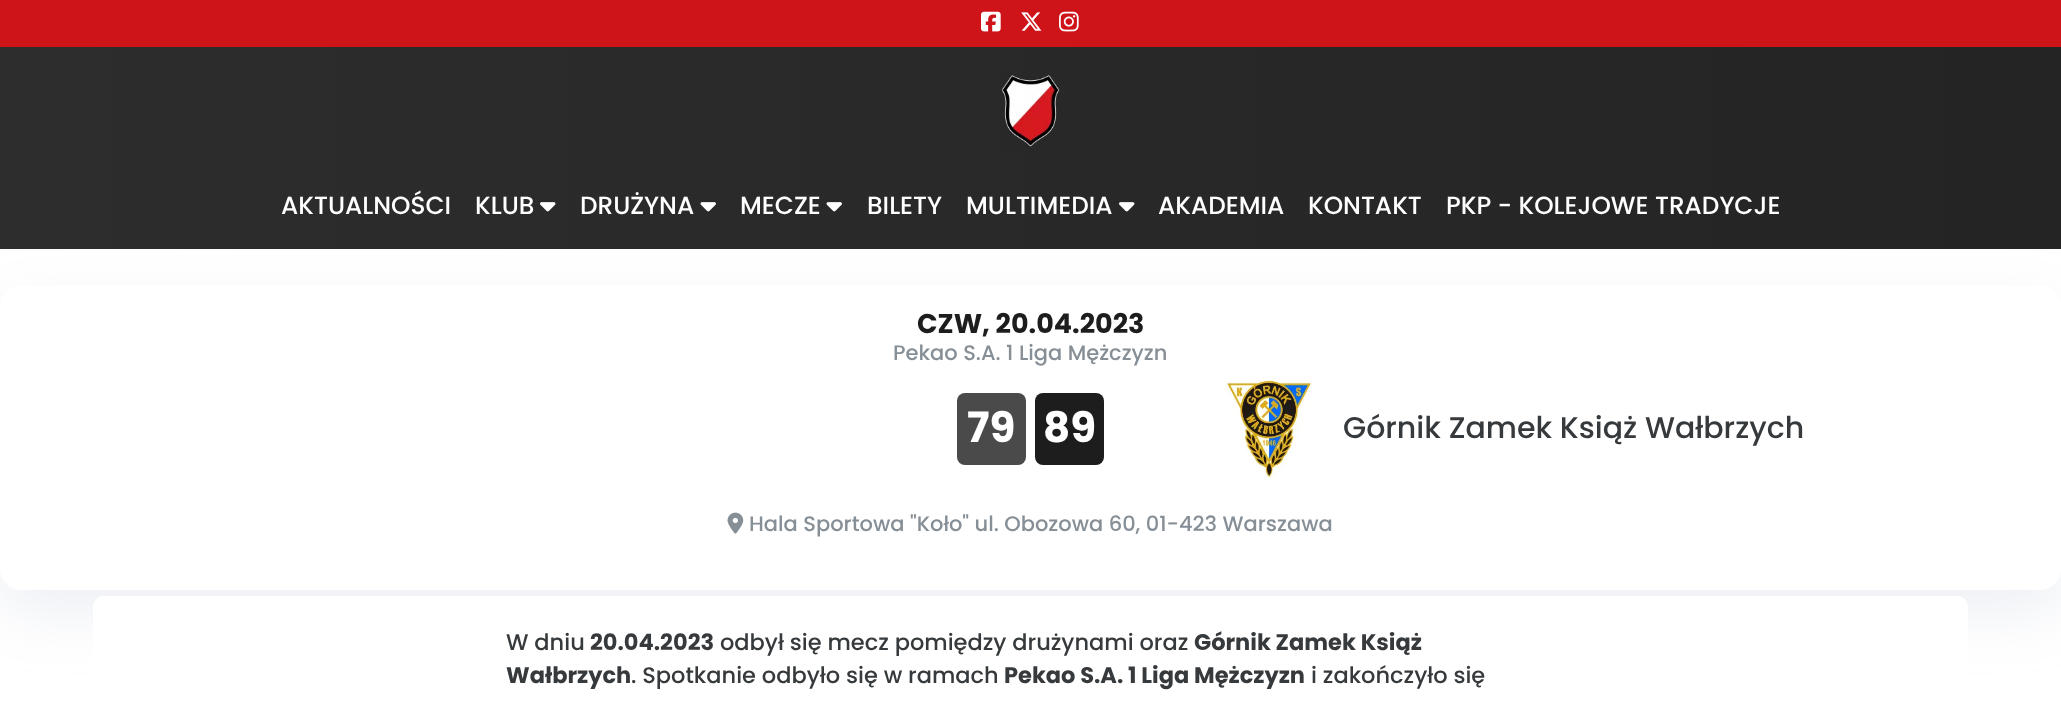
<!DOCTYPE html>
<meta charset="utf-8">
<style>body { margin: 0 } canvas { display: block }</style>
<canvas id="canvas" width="2061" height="711"></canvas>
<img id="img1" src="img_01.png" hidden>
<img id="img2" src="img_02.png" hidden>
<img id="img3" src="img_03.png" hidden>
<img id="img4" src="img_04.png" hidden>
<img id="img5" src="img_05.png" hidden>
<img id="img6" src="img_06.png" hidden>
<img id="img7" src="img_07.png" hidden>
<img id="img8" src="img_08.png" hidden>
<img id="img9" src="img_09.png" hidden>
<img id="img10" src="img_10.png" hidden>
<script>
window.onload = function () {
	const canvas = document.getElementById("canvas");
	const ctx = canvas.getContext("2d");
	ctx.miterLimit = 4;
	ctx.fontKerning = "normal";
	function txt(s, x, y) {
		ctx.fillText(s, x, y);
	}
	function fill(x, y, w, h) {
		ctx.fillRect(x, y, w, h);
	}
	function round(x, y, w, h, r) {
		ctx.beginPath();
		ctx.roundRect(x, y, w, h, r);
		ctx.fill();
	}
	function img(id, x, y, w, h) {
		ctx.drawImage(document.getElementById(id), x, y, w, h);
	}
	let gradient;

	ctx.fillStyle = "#FFFFFF";
	fill(0, 0, 2061, 711);
	ctx.fillStyle = "#CE1419";
	fill(0, 0, 2061, 47);
	img("img1", 981, 11, 20, 21);
	img("img2", 1021, 12, 21, 19);
	img("img3", 1059, 11, 20, 21);
	gradient = ctx.createLinearGradient(0, 105, 2061, 105);
	gradient.addColorStop(0, "#2D2D2D");
	gradient.addColorStop(1, "#242424");
	ctx.fillStyle = gradient;
	fill(0, 47, 2061, 118);
	img("img4", 1001, 75, 59, 72);
	ctx.fillStyle = "rgba(166, 173, 201, 0.2)";
	ctx.filter = "blur(30px)";
	ctx.beginPath();
	ctx.roundRect(0, 308, 2061, 304, 21);
	ctx.fill();
	ctx.filter = "none";
	gradient = ctx.createLinearGradient(0, 207, 2061, 207);
	gradient.addColorStop(0, "#2D2D2D");
	gradient.addColorStop(1, "#242424");
	ctx.fillStyle = gradient;
	fill(0, 165, 2061, 84);
	img("img5", 540, 202, 16, 10);
	img("img6", 700, 202, 16, 10);
	img("img7", 826, 202, 16, 10);
	img("img8", 1119, 202, 16, 10);
	ctx.fillStyle = "#FFFFFF";
	round(0, 285, 2061, 305, 21);
	ctx.fillStyle = "#4A4A4A";
	round(957, 393, 69, 72, 8);
	ctx.fillStyle = "#1D1D1D";
	round(1035, 393, 69, 72, 8);
	img("img9", 1225, 380, 88, 98);
	img("img10", 727, 512, 17, 22);
	ctx.fillStyle = "#FFFFFF";
	round(93, 596, 1875, 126, 11);
	ctx.font = "500 24.75px Poppins";
	txt("AKTUALNOŚCI", 281, 214);
	txt("KLUB", 475, 214);
	txt("DRUŻYNA", 580, 214);
	txt("MECZE", 740, 214);
	txt("BILETY", 867, 214);
	txt("MULTIMEDIA", 966, 214);
	txt("AKADEMIA", 1158, 214);
	txt("KONTAKT", 1308, 214);
	txt("PKP - KOLEJOWE TRADYCJE", 1446, 214);
	ctx.font = "bold 27px Poppins";
	ctx.fillStyle = "#1D1D1D";
	txt("CZW, 20.04.2023", 917, 333);
	ctx.font = "500 21px Poppins";
	ctx.fillStyle = "#868E96";
	txt("Pekao S.A. 1 Liga Mężczyzn", 893, 360);
	ctx.font = "bold 42px Poppins";
	ctx.fillStyle = "#FFFFFF";
	txt("79", 967, 442);
	txt("89", 1043, 442);
	ctx.font = "500 30px Poppins";
	ctx.fillStyle = "#373A3C";
	txt("Górnik Zamek Książ Wałbrzych", 1343, 438);
	ctx.font = "500 21px Poppins";
	ctx.fillStyle = "#868E96";
	txt("Hala Sportowa \"Koło\" ul. Obozowa 60, 01-423 Warszawa", 749, 531);
	ctx.font = "500 22.5px Poppins";
	ctx.fillStyle = "#373A3C";
	txt("W dniu", 506, 650);
	ctx.font = "bold 22.5px Poppins";
	txt("20.04.2023", 590, 650);
	ctx.font = "500 22.5px Poppins";
	txt("odbył się mecz pomiędzy drużynami oraz", 720, 650);
	ctx.font = "bold 22.5px Poppins";
	txt("Górnik Zamek Książ", 1194, 650);
	txt("Wałbrzych", 506, 683);
	ctx.font = "500 22.5px Poppins";
	txt(". Spotkanie odbyło się w ramach", 631, 683);
	ctx.font = "bold 22.5px Poppins";
	txt("Pekao S.A. 1 Liga Mężczyzn", 1004, 683);
	ctx.font = "500 22.5px Poppins";
	txt("i zakończyło się", 1311, 683);
};
</script>
